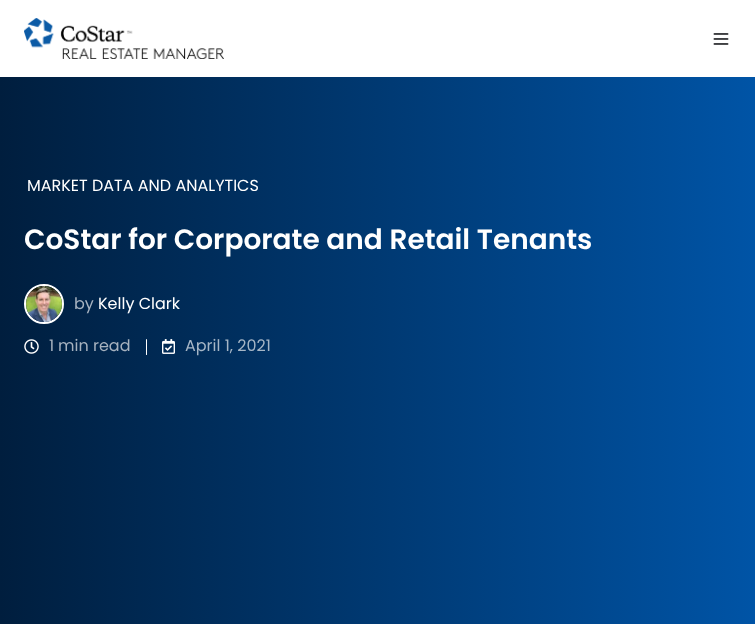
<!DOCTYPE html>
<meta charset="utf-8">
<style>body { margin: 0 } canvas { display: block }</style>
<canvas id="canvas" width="755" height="624"></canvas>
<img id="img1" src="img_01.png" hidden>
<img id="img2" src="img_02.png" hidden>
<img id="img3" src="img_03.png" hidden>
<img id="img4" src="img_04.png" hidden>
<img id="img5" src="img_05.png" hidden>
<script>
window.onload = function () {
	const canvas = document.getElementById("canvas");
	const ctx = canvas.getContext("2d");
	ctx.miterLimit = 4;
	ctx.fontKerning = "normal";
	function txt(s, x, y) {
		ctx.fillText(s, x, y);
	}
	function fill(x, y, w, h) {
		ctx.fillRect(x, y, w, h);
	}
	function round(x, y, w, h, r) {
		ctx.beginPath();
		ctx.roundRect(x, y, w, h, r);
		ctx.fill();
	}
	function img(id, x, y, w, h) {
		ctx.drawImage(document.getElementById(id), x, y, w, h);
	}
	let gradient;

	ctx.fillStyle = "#FFFFFF";
	fill(0, 0, 755, 624);
	img("img1", 24, 18, 200, 41);
	img("img2", 713, 33, 16, 12);
	gradient = ctx.createLinearGradient(0, 451, 755, 451);
	gradient.addColorStop(0, "#001E3E");
	gradient.addColorStop(1, "#0054A6");
	ctx.fillStyle = gradient;
	fill(0, 77, 755, 547);
	ctx.beginPath();
	ctx.arc(44, 304, 19, 0, Math.PI * 2);
	ctx.strokeStyle = "#FFFFFF";
	ctx.lineWidth = 2;
	ctx.stroke();
	img("img3", 26, 286, 36, 36);
	img("img4", 24, 339, 15, 15);
	ctx.fillStyle = "#FFFFFF";
	round(146, 339, 1, 16, 0.5);
	img("img5", 162, 339, 13, 15);
	ctx.font = "16px Poppins";
	txt("MARKET DATA AND ANALYTICS", 27, 191);
	ctx.font = "600 28px Poppins";
	txt("CoStar for Corporate and Retail Tenants", 24, 249);
	ctx.font = "16px Poppins";
	ctx.fillStyle = "#A6B2BF";
	txt("by", 74, 309);
	ctx.fillStyle = "#FFFFFF";
	txt("Kelly Clark", 98, 309);
	ctx.fillStyle = "#A6B2BF";
	txt("1", 49, 351);
	txt("min read", 58, 351);
	ctx.fillStyle = "#A6B6C6";
	txt("April 1, 2021", 185, 351);
};
</script>
